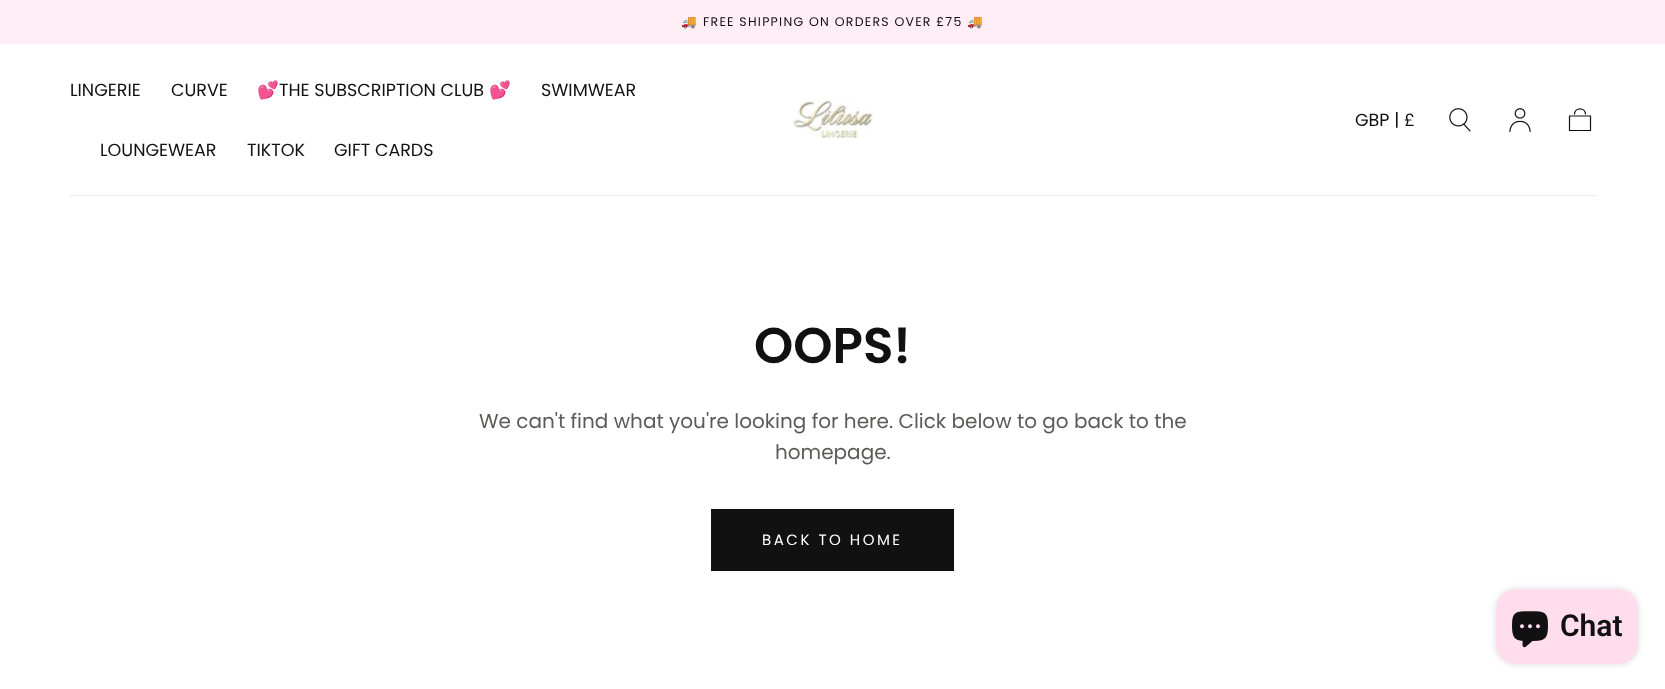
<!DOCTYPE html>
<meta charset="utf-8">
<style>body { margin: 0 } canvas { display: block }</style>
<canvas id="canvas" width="1665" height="689"></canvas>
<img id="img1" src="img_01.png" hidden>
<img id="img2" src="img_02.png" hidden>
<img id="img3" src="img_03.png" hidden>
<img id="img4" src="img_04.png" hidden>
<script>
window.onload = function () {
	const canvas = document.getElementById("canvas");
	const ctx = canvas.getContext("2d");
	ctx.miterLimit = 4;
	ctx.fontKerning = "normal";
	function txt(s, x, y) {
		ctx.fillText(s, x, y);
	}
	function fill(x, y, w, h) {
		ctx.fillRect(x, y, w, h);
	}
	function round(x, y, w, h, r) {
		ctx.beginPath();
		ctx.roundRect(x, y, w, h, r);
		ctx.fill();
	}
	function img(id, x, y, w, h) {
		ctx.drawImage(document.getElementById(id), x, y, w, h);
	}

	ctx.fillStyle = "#FFFFFF";
	fill(0, 0, 1665, 689);
	ctx.fillStyle = "#FFEEF6";
	fill(0, 0, 1665, 44);
	img("img1", 790, 98, 83, 41);
	img("img2", 1449, 108, 22, 24);
	img("img3", 1509, 108, 22, 24);
	ctx.beginPath();
	ctx.moveTo(1590.5, 130.5);
	ctx.lineTo(1569.5, 130.5);
	ctx.lineTo(1569.5, 116);
	ctx.lineTo(1590.5, 116);
	ctx.closePath();
	ctx.moveTo(1585.5, 114.5);
	ctx.bezierCurveTo(1585.5, 107, 1574.5, 107, 1574.5, 114.5);
	ctx.strokeStyle = "#111111";
	ctx.lineWidth = 1.2;
	ctx.stroke();
	ctx.fillStyle = "#E7E7E7";
	fill(70, 195, 1525, 1);
	ctx.fillStyle = "#111111";
	fill(711, 509, 243, 62);
	ctx.fillStyle = "rgba(0, 0, 0, 0.15)";
	ctx.filter = "blur(3px)";
	ctx.beginPath();
	ctx.roundRect(1496, 589, 142, 75, 20);
	ctx.fill();
	ctx.filter = "none";
	ctx.fillStyle = "#FFDDED";
	round(1496, 589, 142, 75, 20);
	img("img4", 1512, 611, 36, 37);
	ctx.save();
	ctx.beginPath();
	ctx.rect(70, 15, 1525, 14);
	ctx.clip();
	ctx.letterSpacing = "1.25px";
	ctx.font = "12.5px Noto Color Emoji";
	ctx.fillStyle = "#111111";
	txt("🚚", 681, 26);
	ctx.restore();
	ctx.letterSpacing = "1.25px";
	ctx.font = "12.5px Poppins";
	ctx.fillStyle = "#111111";
	txt("FREE SHIPPING ON ORDERS OVER £75", 703, 26);
	ctx.save();
	ctx.beginPath();
	ctx.rect(70, 15, 1525, 14);
	ctx.clip();
	ctx.font = "12.5px Noto Color Emoji";
	txt("🚚", 967, 26);
	ctx.restore();
	ctx.letterSpacing = "0px";
	ctx.font = "17.5px Poppins";
	txt("LINGERIE", 70, 96);
	txt("CURVE", 171, 96);
	ctx.font = "17.5px Noto Color Emoji";
	txt("💕", 257, 96);
	ctx.font = "17.5px Poppins";
	txt("THE SUBSCRIPTION CLUB", 279, 96);
	ctx.font = "17.5px Noto Color Emoji";
	txt("💕", 489, 96);
	ctx.font = "17.5px Poppins";
	txt("SWIMWEAR", 541, 96);
	txt("LOUNGEWEAR", 100, 156);
	txt("TIKTOK", 247, 156);
	txt("GIFT CARDS", 334, 156);
	txt("GBP | £", 1355, 126);
	ctx.font = "600 50px Poppins";
	txt("OOPS!", 754, 363);
	ctx.font = "20px Poppins";
	ctx.fillStyle = "#5E5A59";
	txt("We can't find what you're looking for here. Click below to go back to the", 479, 428);
	txt("homepage.", 775, 459);
	ctx.letterSpacing = "2.5px";
	ctx.font = "15px Poppins";
	ctx.fillStyle = "#FFFFFF";
	txt("BACK TO HOME", 762, 545);
	ctx.letterSpacing = "0px";
	ctx.font = "600 30px Roboto";
	ctx.fillStyle = "#111111";
	txt("Chat", 1560, 636);
};
</script>
